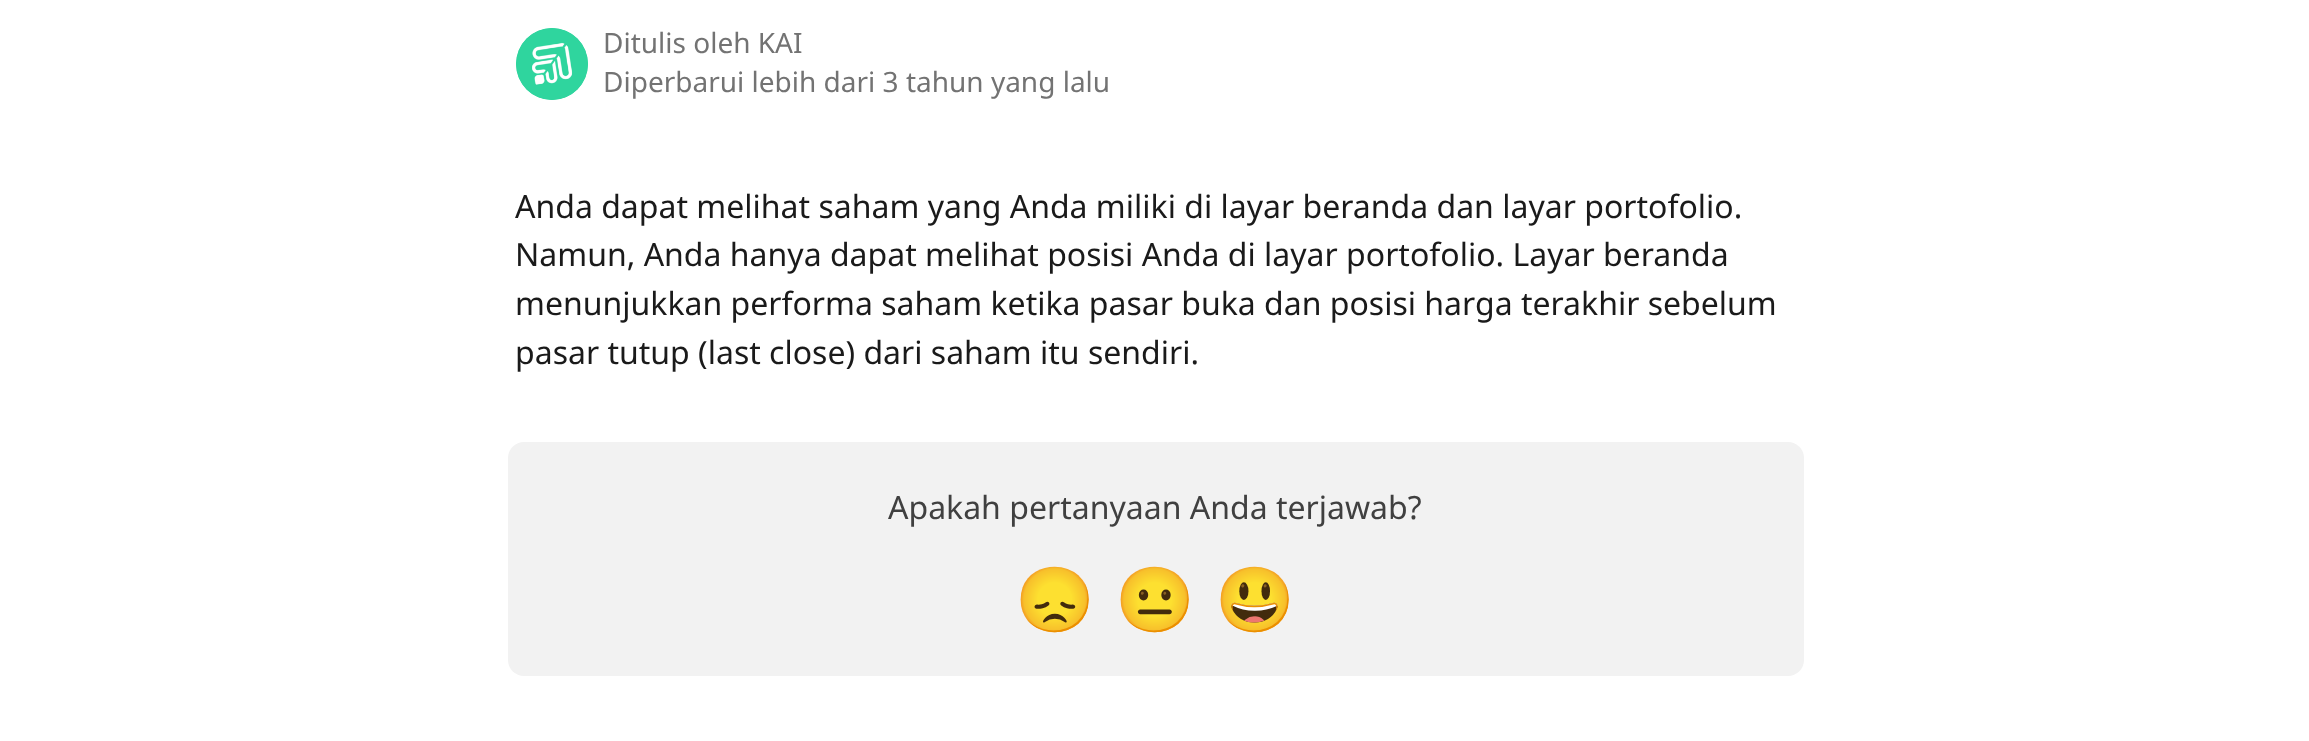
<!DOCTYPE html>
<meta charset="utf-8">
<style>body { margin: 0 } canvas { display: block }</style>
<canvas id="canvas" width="2309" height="741"></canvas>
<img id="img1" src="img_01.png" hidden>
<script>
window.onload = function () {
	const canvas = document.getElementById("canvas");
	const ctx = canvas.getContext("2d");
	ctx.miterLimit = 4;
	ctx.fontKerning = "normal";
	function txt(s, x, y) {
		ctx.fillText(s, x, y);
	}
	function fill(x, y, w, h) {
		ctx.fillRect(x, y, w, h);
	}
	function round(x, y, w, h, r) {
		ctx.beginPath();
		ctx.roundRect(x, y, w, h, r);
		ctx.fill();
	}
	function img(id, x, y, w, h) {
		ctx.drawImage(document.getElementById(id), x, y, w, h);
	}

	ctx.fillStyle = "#FFFFFF";
	fill(0, 0, 2309, 741);
	ctx.fillStyle = "#35D49F";
	ctx.beginPath();
	ctx.arc(552, 64, 36, 0, Math.PI * 2);
	ctx.fill();
	img("img1", 516, 28, 72, 72);
	ctx.fillStyle = "#F2F2F2";
	round(508, 442, 1296, 234, 16);
	ctx.font = "28px Noto Sans";
	ctx.fillStyle = "#737373";
	txt("Ditulis oleh KAI", 603, 53);
	txt("Diperbarui lebih dari 3 tahun yang lalu", 603, 92);
	ctx.font = "32px Noto Sans";
	ctx.fillStyle = "#1A1A1A";
	txt("Anda dapat melihat saham yang Anda miliki di layar beranda dan layar portofolio.", 515, 218);
	txt("Namun, Anda hanya dapat melihat posisi Anda di layar portofolio. Layar beranda", 515, 266);
	txt("menunjukkan performa saham ketika pasar buka dan posisi harga terakhir sebelum", 515, 315);
	txt("pasar tutup (last close) dari saham itu sendiri.", 515, 364);
	ctx.fillStyle = "#404040";
	txt("Apakah pertanyaan Anda terjawab?", 888, 519);
	ctx.font = "64px Noto Color Emoji";
	txt("😞", 1015, 622);
	txt("😐", 1115, 622);
	txt("😃", 1215, 622);
};
</script>
